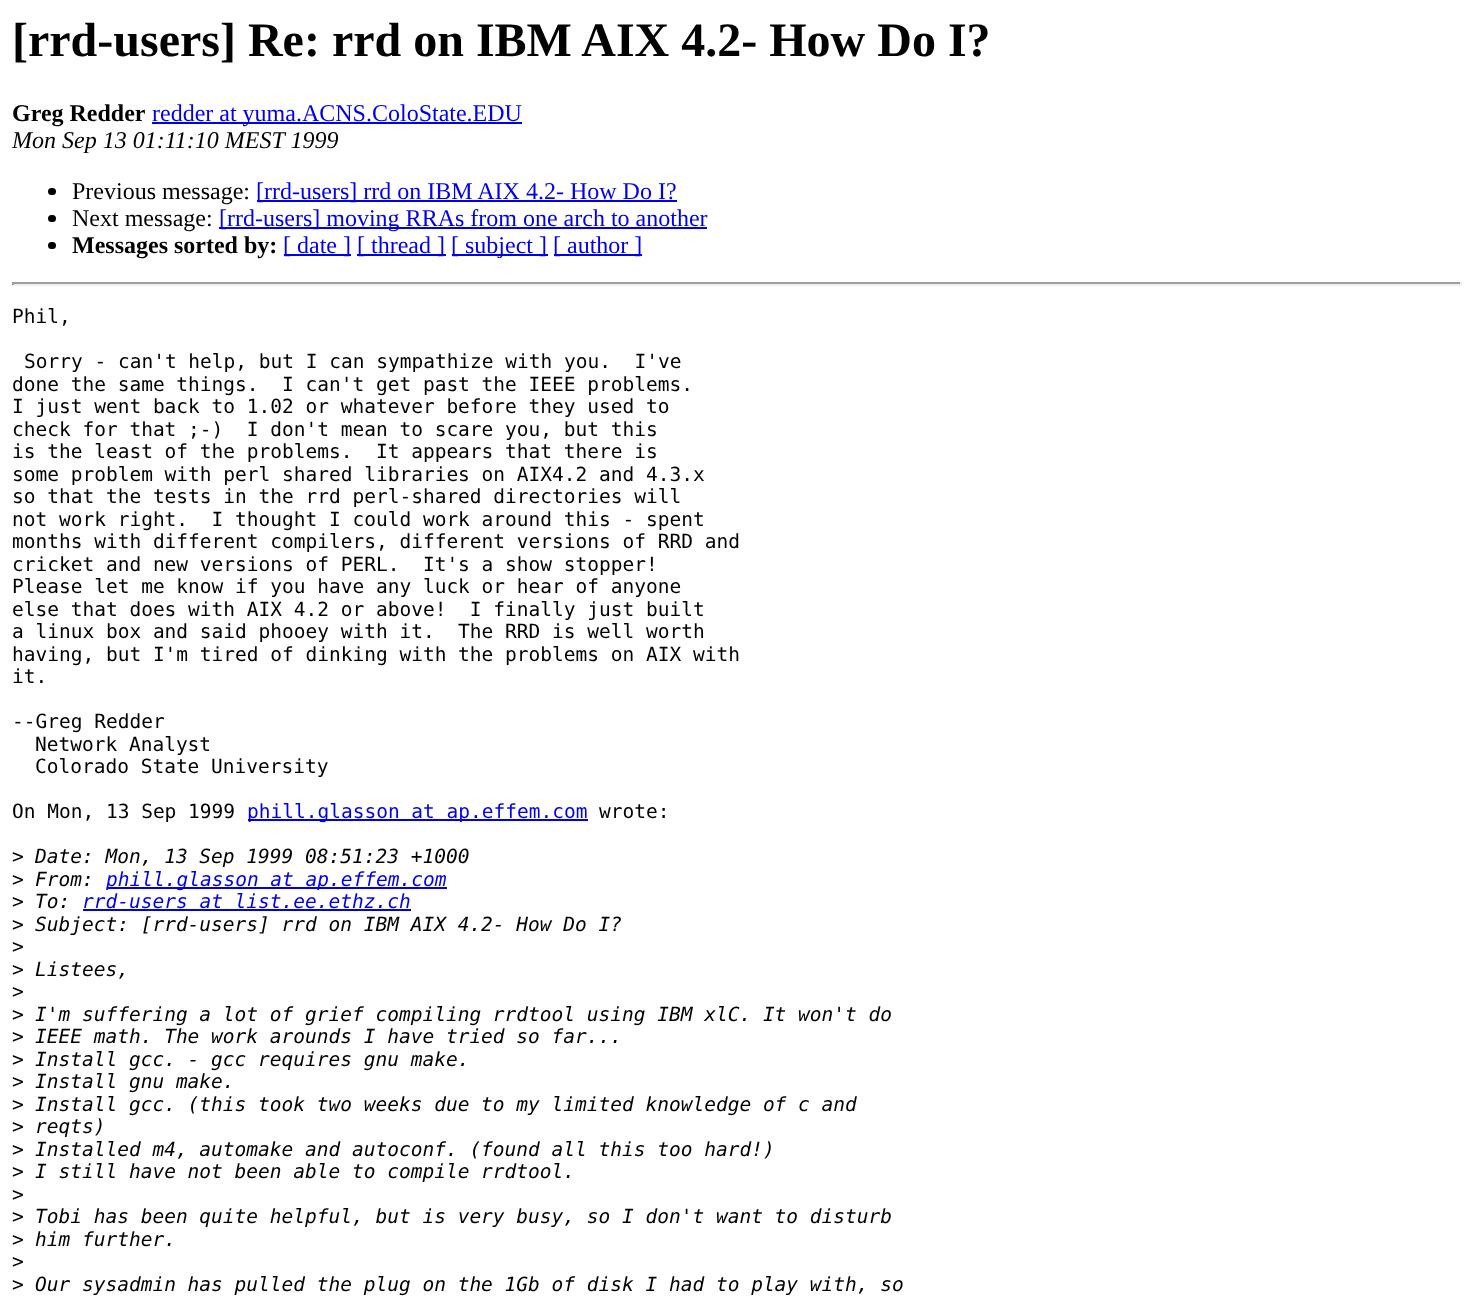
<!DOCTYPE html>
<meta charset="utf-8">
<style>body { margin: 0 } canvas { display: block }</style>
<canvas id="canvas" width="1473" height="1302"></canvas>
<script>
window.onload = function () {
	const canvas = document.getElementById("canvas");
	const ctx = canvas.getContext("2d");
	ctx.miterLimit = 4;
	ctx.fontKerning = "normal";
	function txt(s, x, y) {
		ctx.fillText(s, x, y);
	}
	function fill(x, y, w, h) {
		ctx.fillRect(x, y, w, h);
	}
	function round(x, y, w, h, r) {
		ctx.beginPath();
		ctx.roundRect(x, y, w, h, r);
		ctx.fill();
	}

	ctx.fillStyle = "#FFFFFF";
	fill(0, 0, 1473, 1302);
	ctx.fillStyle = "#0000EE";
	fill(152, 122, 370, 2);
	ctx.fillStyle = "#000000";
	round(48, 188, 8, 7, 3.5);
	ctx.fillStyle = "#0000EE";
	fill(257, 200, 420, 2);
	ctx.fillStyle = "#000000";
	round(48, 215, 8, 7, 3.5);
	ctx.fillStyle = "#0000EE";
	fill(219, 227, 488, 2);
	ctx.fillStyle = "#000000";
	round(48, 242, 8, 7, 3.5);
	ctx.fillStyle = "#0000EE";
	fill(284, 254, 67, 2);
	fill(357, 254, 89, 2);
	fill(452, 254, 96, 2);
	fill(554, 254, 88, 2);
	ctx.fillStyle = "#9F9F9F";
	fill(12, 282, 1449, 2);
	ctx.fillStyle = "#EEEEEE";
	fill(1460, 282, 2, 3);
	fill(12, 284, 1449, 2);
	ctx.fillStyle = "#9F9F9F";
	fill(12, 282, 2, 3);
	ctx.fillStyle = "#0000EE";
	fill(248, 819, 340, 2);
	fill(107, 887, 340, 2);
	fill(83, 909, 328, 2);
	ctx.font = "bold 48px Liberation Serif";
	ctx.fillStyle = "#000000";
	txt("[rrd-users] Re: rrd on IBM AIX 4.2- How Do I?", 12, 56);
	ctx.font = "bold 24px Liberation Serif";
	txt("Greg Redder", 12, 121);
	ctx.font = "24px Liberation Serif";
	ctx.fillStyle = "#0000EE";
	txt("redder at yuma.ACNS.ColoState.EDU", 152, 121);
	ctx.font = "italic 24px Liberation Serif";
	ctx.fillStyle = "#000000";
	txt("Mon Sep 13 01:11:10 MEST 1999", 12, 148);
	ctx.font = "24px Liberation Serif";
	txt("Previous message:", 72, 199);
	ctx.fillStyle = "#0000EE";
	txt("[rrd-users] rrd on IBM AIX 4.2- How Do I?", 256, 199);
	ctx.fillStyle = "#000000";
	txt("Next message:", 72, 226);
	ctx.fillStyle = "#0000EE";
	txt("[rrd-users] moving RRAs from one arch to another", 219, 226);
	ctx.font = "bold 24px Liberation Serif";
	ctx.fillStyle = "#000000";
	txt("Messages sorted by:", 72, 253);
	ctx.font = "24px Liberation Serif";
	ctx.fillStyle = "#0000EE";
	txt("[ date ]", 283, 253);
	txt("[ thread ]", 357, 253);
	txt("[ subject ]", 451, 253);
	txt("[ author ]", 553, 253);
	ctx.font = "19.5px DejaVu Sans Mono";
	ctx.fillStyle = "#000000";
	txt("Phil,", 12, 323);
	txt("Sorry - can't help, but I can sympathize with you.  I've", 24, 368);
	txt("done the same things.  I can't get past the IEEE problems.", 12, 391);
	txt("I just went back to 1.02 or whatever before they used to", 12, 413);
	txt("check for that ;-)  I don't mean to scare you, but this", 12, 436);
	txt("is the least of the problems.  It appears that there is", 12, 458);
	txt("some problem with perl shared libraries on AIX4.2 and 4.3.x", 12, 481);
	txt("so that the tests in the rrd perl-shared directories will", 12, 503);
	txt("not work right.  I thought I could work around this - spent", 12, 526);
	txt("months with different compilers, different versions of RRD and", 12, 548);
	txt("cricket and new versions of PERL.  It's a show stopper!", 12, 571);
	txt("Please let me know if you have any luck or hear of anyone", 12, 593);
	txt("else that does with AIX 4.2 or above!  I finally just built", 12, 616);
	txt("a linux box and said phooey with it.  The RRD is well worth", 12, 638);
	txt("having, but I'm tired of dinking with the problems on AIX with", 12, 661);
	txt("it.", 12, 683);
	txt("--Greg Redder", 12, 728);
	txt("Network Analyst", 35, 751);
	txt("Colorado State University", 35, 773);
	txt("On Mon, 13 Sep 1999", 12, 818);
	ctx.fillStyle = "#0000EE";
	txt("phill.glasson at ap.effem.com", 247, 818);
	ctx.fillStyle = "#000000";
	txt("wrote:", 599, 818);
	txt(">", 12, 863);
	ctx.font = "italic 19.5px DejaVu Sans Mono";
	txt("Date: Mon, 13 Sep 1999 08:51:23 +1000", 35, 863);
	ctx.font = "19.5px DejaVu Sans Mono";
	txt(">", 12, 886);
	ctx.font = "italic 19.5px DejaVu Sans Mono";
	txt("From:", 35, 886);
	ctx.fillStyle = "#0000EE";
	txt("phill.glasson at ap.effem.com", 106, 886);
	ctx.font = "19.5px DejaVu Sans Mono";
	ctx.fillStyle = "#000000";
	txt(">", 12, 908);
	ctx.font = "italic 19.5px DejaVu Sans Mono";
	txt("To:", 35, 908);
	ctx.fillStyle = "#0000EE";
	txt("rrd-users at list.ee.ethz.ch", 82, 908);
	ctx.font = "19.5px DejaVu Sans Mono";
	ctx.fillStyle = "#000000";
	txt(">", 12, 931);
	ctx.font = "italic 19.5px DejaVu Sans Mono";
	txt("Subject: [rrd-users] rrd on IBM AIX 4.2- How Do I?", 35, 931);
	ctx.font = "19.5px DejaVu Sans Mono";
	txt(">", 12, 953);
	txt(">", 12, 976);
	ctx.font = "italic 19.5px DejaVu Sans Mono";
	txt("Listees,", 35, 976);
	ctx.font = "19.5px DejaVu Sans Mono";
	txt(">", 12, 998);
	txt(">", 12, 1021);
	ctx.font = "italic 19.5px DejaVu Sans Mono";
	txt("I'm suffering a lot of grief compiling rrdtool using IBM xlC. It won't do", 35, 1021);
	ctx.font = "19.5px DejaVu Sans Mono";
	txt(">", 12, 1043);
	ctx.font = "italic 19.5px DejaVu Sans Mono";
	txt("IEEE math. The work arounds I have tried so far...", 35, 1043);
	ctx.font = "19.5px DejaVu Sans Mono";
	txt(">", 12, 1066);
	ctx.font = "italic 19.5px DejaVu Sans Mono";
	txt("Install gcc. - gcc requires gnu make.", 35, 1066);
	ctx.font = "19.5px DejaVu Sans Mono";
	txt(">", 12, 1088);
	ctx.font = "italic 19.5px DejaVu Sans Mono";
	txt("Install gnu make.", 35, 1088);
	ctx.font = "19.5px DejaVu Sans Mono";
	txt(">", 12, 1111);
	ctx.font = "italic 19.5px DejaVu Sans Mono";
	txt("Install gcc. (this took two weeks due to my limited knowledge of c and", 35, 1111);
	ctx.font = "19.5px DejaVu Sans Mono";
	txt(">", 12, 1133);
	ctx.font = "italic 19.5px DejaVu Sans Mono";
	txt("reqts)", 35, 1133);
	ctx.font = "19.5px DejaVu Sans Mono";
	txt(">", 12, 1156);
	ctx.font = "italic 19.5px DejaVu Sans Mono";
	txt("Installed m4, automake and autoconf. (found all this too hard!)", 35, 1156);
	ctx.font = "19.5px DejaVu Sans Mono";
	txt(">", 12, 1178);
	ctx.font = "italic 19.5px DejaVu Sans Mono";
	txt("I still have not been able to compile rrdtool.", 35, 1178);
	ctx.font = "19.5px DejaVu Sans Mono";
	txt(">", 12, 1201);
	txt(">", 12, 1223);
	ctx.font = "italic 19.5px DejaVu Sans Mono";
	txt("Tobi has been quite helpful, but is very busy, so I don't want to disturb", 35, 1223);
	ctx.font = "19.5px DejaVu Sans Mono";
	txt(">", 12, 1246);
	ctx.font = "italic 19.5px DejaVu Sans Mono";
	txt("him further.", 35, 1246);
	ctx.font = "19.5px DejaVu Sans Mono";
	txt(">", 12, 1268);
	txt(">", 12, 1291);
	ctx.font = "italic 19.5px DejaVu Sans Mono";
	txt("Our sysadmin has pulled the plug on the 1Gb of disk I had to play with, so", 35, 1291);
};
</script>
